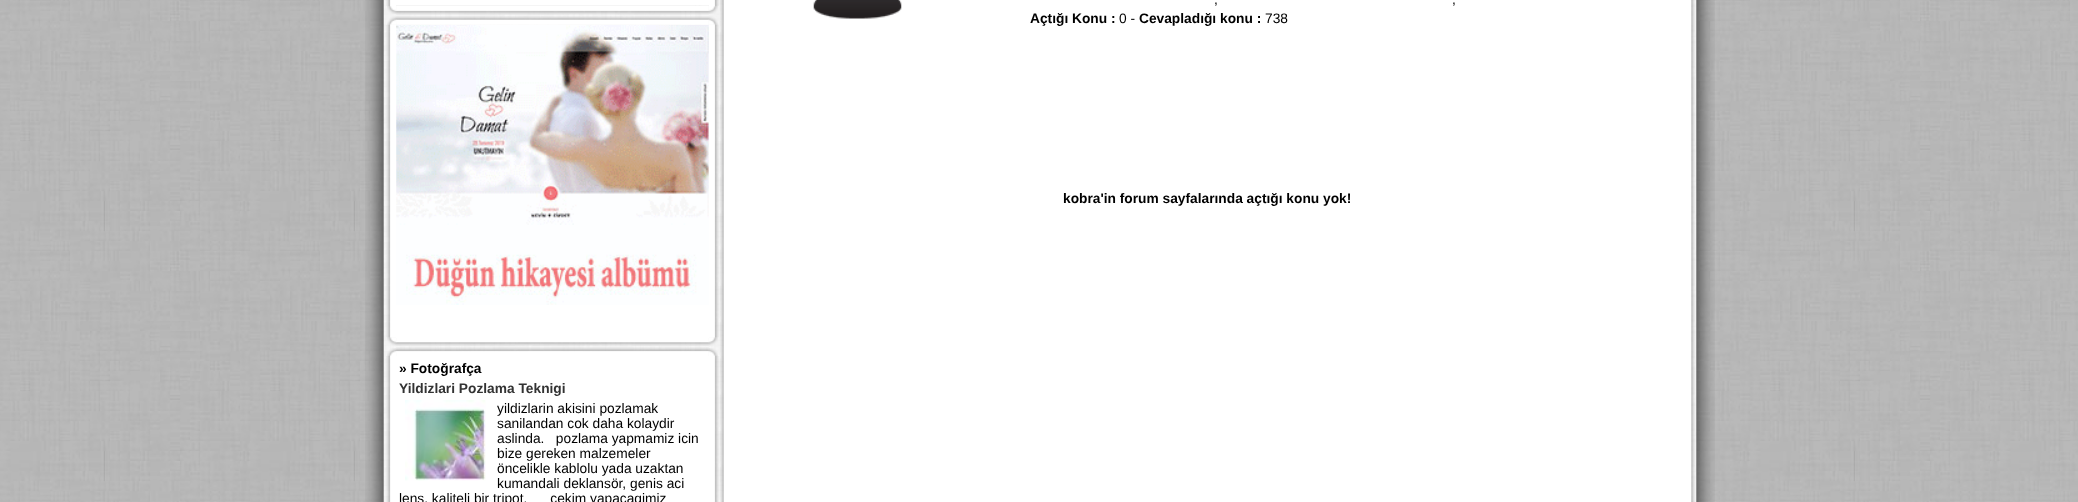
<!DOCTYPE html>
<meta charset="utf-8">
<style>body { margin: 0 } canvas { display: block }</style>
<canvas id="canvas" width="2078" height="502"></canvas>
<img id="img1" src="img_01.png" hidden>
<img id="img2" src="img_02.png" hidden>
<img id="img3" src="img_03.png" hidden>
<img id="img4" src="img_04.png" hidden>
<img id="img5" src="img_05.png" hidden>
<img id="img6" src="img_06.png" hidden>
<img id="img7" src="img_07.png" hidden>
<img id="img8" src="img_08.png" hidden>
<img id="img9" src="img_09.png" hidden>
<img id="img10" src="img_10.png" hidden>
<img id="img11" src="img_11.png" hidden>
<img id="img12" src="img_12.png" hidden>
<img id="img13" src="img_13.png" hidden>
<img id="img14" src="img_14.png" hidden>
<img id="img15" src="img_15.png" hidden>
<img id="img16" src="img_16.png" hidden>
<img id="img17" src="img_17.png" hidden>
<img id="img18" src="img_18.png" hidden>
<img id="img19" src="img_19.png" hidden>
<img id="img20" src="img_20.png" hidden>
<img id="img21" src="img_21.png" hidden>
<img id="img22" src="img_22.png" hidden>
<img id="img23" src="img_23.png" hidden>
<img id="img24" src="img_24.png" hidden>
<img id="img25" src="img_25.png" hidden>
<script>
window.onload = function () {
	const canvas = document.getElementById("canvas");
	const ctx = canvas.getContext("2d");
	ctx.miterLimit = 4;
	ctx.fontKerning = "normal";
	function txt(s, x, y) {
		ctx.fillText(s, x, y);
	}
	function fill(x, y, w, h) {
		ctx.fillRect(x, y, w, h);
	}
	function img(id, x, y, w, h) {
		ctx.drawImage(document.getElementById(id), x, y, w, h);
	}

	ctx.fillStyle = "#FFFFFF";
	fill(0, 0, 2078, 502);
	img("img1", 0, 0, 2078, 502);
	img("img2", 365, 0, 1350, 502);
	img("img3", 720, 0, 10, 502);
	fill(730, 0, 955, 502);
	img("img4", 813, 0, 89, 19);
	img("img5", 1685, 0, 10, 502);
	img("img6", 386, 0, 10, 6);
	fill(396, 0, 313, 5);
	ctx.fillStyle = "#F5F5F5";
	fill(396, 5, 299, 1);
	img("img7", 709, 0, 10, 6);
	img("img8", 387, 6, 10, 8);
	img("img9", 396, 6, 313, 9);
	img("img10", 708, 6, 10, 8);
	img("img11", 387, 16, 10, 9);
	img("img12", 396, 16, 313, 9);
	img("img13", 708, 16, 10, 9);
	img("img14", 386, 24, 10, 314);
	ctx.fillStyle = "#FFFFFF";
	fill(396, 25, 313, 313);
	img("img15", 396, 25, 313, 280);
	img("img16", 709, 24, 10, 314);
	img("img17", 387, 337, 10, 9);
	img("img18", 396, 338, 313, 8);
	img("img19", 708, 337, 10, 9);
	img("img20", 387, 348, 10, 8);
	img("img21", 396, 347, 313, 9);
	img("img22", 708, 348, 10, 8);
	img("img23", 386, 356, 10, 146);
	fill(396, 356, 313, 146);
	img("img24", 405, 400, 81, 81);
	img("img25", 709, 356, 10, 146);
	ctx.font = "13.75px Liberation Sans";
	ctx.fillStyle = "#000000";
	txt(",", 1214, 4);
	txt(",", 1452, 4);
	ctx.font = "bold 13.75px Liberation Sans";
	txt("Açtığı Konu :", 1030, 23);
	ctx.font = "13.75px Liberation Sans";
	txt("0 -", 1119, 23);
	ctx.font = "bold 13.75px Liberation Sans";
	txt("Cevapladığı konu :", 1139, 23);
	ctx.font = "13.75px Liberation Sans";
	txt("738", 1265, 23);
	ctx.font = "bold 13.75px Liberation Sans";
	txt("kobra'in forum sayfalarında açtığı konu yok!", 1063, 203);
	txt("» Fotoğrafça", 399, 373);
	ctx.fillStyle = "#333333";
	txt("Yildizlari Pozlama Teknigi", 399, 393);
	ctx.font = "13.75px Liberation Sans";
	ctx.fillStyle = "#000000";
	txt("yildizlarin akisini pozlamak", 497, 413);
	txt("sanilandan cok daha kolaydir", 497, 428);
	txt("aslinda.   pozlama yapmamiz icin", 497, 443);
	txt("bize gereken malzemeler", 497, 458);
	txt("öncelikle kablolu yada uzaktan", 497, 473);
	txt("kumandali deklansör, genis aci", 497, 488);
	txt("lens, kaliteli bir tripot.      cekim yapacagimiz", 399, 503);
};
</script>
